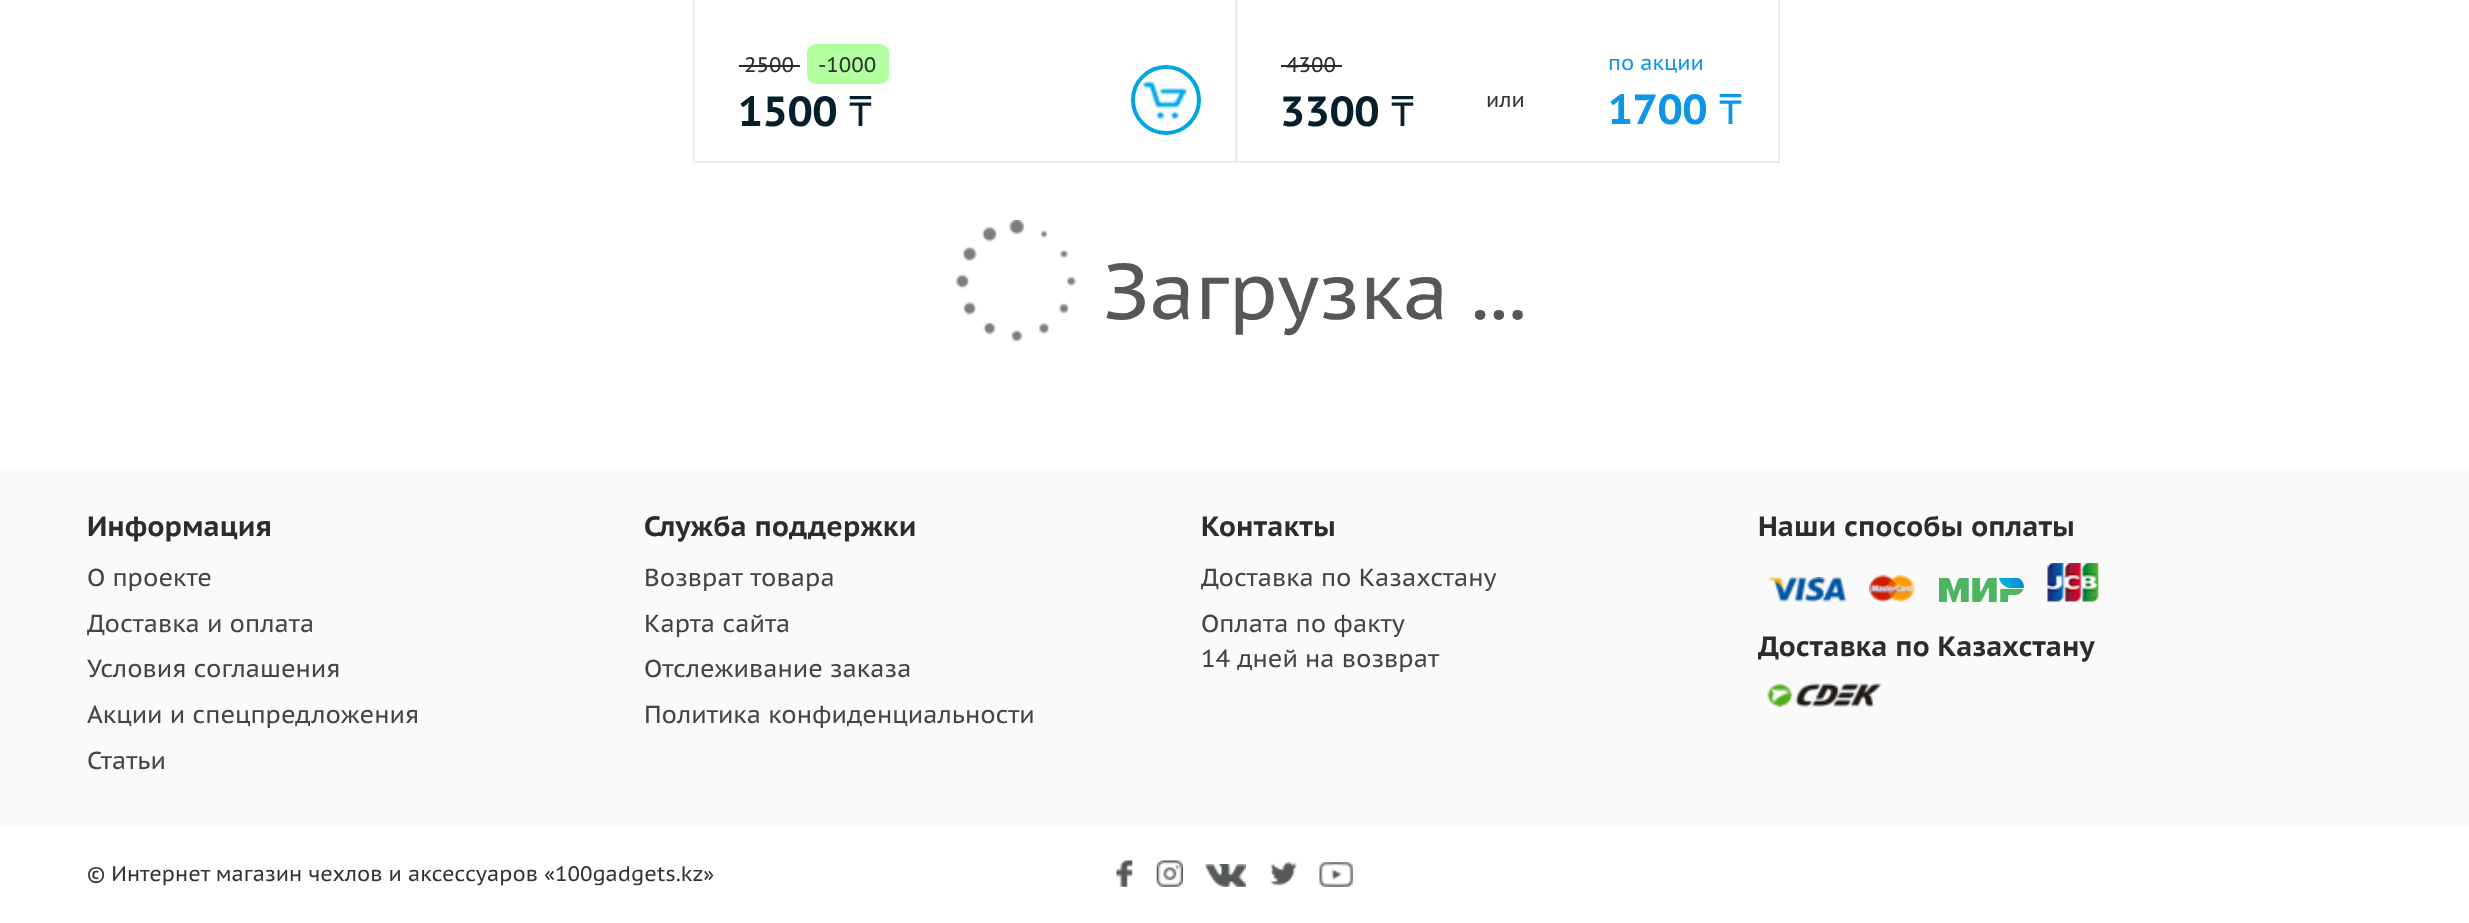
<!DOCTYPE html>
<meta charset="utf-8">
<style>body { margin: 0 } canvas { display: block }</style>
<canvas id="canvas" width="2469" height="923"></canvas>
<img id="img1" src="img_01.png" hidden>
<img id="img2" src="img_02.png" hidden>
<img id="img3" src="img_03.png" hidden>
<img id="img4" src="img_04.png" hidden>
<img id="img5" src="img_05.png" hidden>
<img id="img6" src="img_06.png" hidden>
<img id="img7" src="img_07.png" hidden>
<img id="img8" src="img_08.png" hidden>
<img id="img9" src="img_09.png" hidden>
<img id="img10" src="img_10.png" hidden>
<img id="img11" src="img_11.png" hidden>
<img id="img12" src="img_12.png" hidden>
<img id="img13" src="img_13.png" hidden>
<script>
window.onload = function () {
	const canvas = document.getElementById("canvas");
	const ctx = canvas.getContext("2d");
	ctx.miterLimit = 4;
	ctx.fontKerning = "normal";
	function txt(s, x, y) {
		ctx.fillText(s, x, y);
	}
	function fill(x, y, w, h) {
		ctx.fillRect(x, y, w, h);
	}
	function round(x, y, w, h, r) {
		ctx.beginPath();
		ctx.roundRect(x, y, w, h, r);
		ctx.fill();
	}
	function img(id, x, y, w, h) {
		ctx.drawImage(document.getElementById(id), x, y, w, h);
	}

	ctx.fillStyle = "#FFFFFF";
	fill(0, 0, 2469, 923);
	ctx.strokeStyle = "#EDEDED";
	ctx.lineWidth = 2;
	ctx.strokeRect(694, -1, 542, 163);
	ctx.fillStyle = "#2B2C2C";
	fill(739, 65, 61, 2);
	ctx.fillStyle = "#B1FF9E";
	round(807, 44, 82, 40, 9);
	img("img1", 1142, 81, 45, 38);
	ctx.beginPath();
	ctx.arc(1166, 100, 33, 0, Math.PI * 2);
	ctx.strokeStyle = "#00A6E4";
	ctx.lineWidth = 4;
	ctx.stroke();
	ctx.strokeStyle = "#EDEDED";
	ctx.lineWidth = 2;
	ctx.strokeRect(1237, -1, 542, 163);
	img("img2", 1585, 0, 32, 3);
	ctx.fillStyle = "#2B2C2C";
	fill(1281, 65, 61, 2);
	img("img3", 955, 220, 122, 122);
	ctx.fillStyle = "#FAFAFA";
	fill(0, 469, 2469, 357);
	img("img4", 1767, 577, 80, 25);
	img("img5", 1869, 575, 46, 27);
	img("img6", 1939, 578, 85, 24);
	img("img7", 2047, 563, 52, 39);
	img("img8", 1767, 683, 115, 24);
	img("img9", 1116, 860, 17, 27);
	img("img10", 1156, 860, 27, 27);
	img("img11", 1205, 864, 41, 23);
	img("img12", 1270, 861, 27, 25);
	img("img13", 1319, 862, 34, 25);
	ctx.font = "21px PT Sans Caption";
	ctx.fillStyle = "#2B2C2C";
	txt("2500", 744, 72);
	ctx.fillStyle = "#333333";
	txt("-1000", 818, 72);
	ctx.font = "bold 42px PT Sans Caption";
	ctx.fillStyle = "#051F2D";
	txt("1500", 738, 126);
	ctx.font = "42px Noto Sans";
	txt("₸", 849, 126);
	ctx.font = "21px PT Sans Caption";
	ctx.fillStyle = "#2B2C2C";
	txt("4300", 1286, 72);
	ctx.font = "bold 42px PT Sans Caption";
	ctx.fillStyle = "#051F2D";
	txt("3300", 1280, 126);
	ctx.font = "42px Noto Sans";
	txt("₸", 1391, 126);
	ctx.font = "21px PT Sans Caption";
	ctx.fillStyle = "#333333";
	txt("или", 1486, 107);
	ctx.fillStyle = "#0F95E5";
	txt("по акции", 1608, 70);
	ctx.font = "bold 42px PT Sans Caption";
	txt("1700", 1608, 124);
	ctx.font = "42px Noto Sans";
	txt("₸", 1719, 124);
	ctx.wordSpacing = "-1px";
	ctx.font = "78.75px PT Sans Caption";
	ctx.fillStyle = "#575757";
	txt("Загрузка ...", 1103, 319);
	ctx.wordSpacing = "0px";
	ctx.font = "bold 28px PT Sans Caption";
	ctx.fillStyle = "#2B2C2C";
	txt("Информация", 87, 536);
	ctx.font = "24.5px PT Sans Caption";
	ctx.fillStyle = "#404643";
	txt("О проекте", 87, 586);
	txt("Доставка и оплата", 87, 632);
	txt("Условия соглашения", 87, 677);
	txt("Акции и спецпредложения", 87, 723);
	txt("Статьи", 87, 769);
	ctx.font = "bold 28px PT Sans Caption";
	ctx.fillStyle = "#2B2C2C";
	txt("Служба поддержки", 644, 536);
	ctx.wordSpacing = "1px";
	ctx.font = "24.5px PT Sans Caption";
	ctx.fillStyle = "#404643";
	txt("Возврат товара", 644, 586);
	ctx.wordSpacing = "0px";
	txt("Карта сайта", 644, 632);
	txt("Отслеживание заказа", 644, 677);
	txt("Политика конфиденциальности", 644, 723);
	ctx.font = "bold 28px PT Sans Caption";
	ctx.fillStyle = "#2B2C2C";
	txt("Контакты", 1201, 536);
	ctx.font = "24.5px PT Sans Caption";
	ctx.fillStyle = "#404643";
	txt("Доставка по Казахстану", 1201, 586);
	txt("Оплата по факту", 1201, 632);
	txt("14 дней на возврат", 1201, 667);
	ctx.font = "bold 28px PT Sans Caption";
	ctx.fillStyle = "#2B2C2C";
	txt("Наши способы оплаты", 1758, 536);
	txt("Доставка по Казахстану", 1758, 656);
	ctx.font = "21px PT Sans Caption";
	ctx.fillStyle = "#333333";
	txt("© Интернет магазин чехлов и аксессуаров «100gadgets.kz»", 87, 881);
};
</script>
